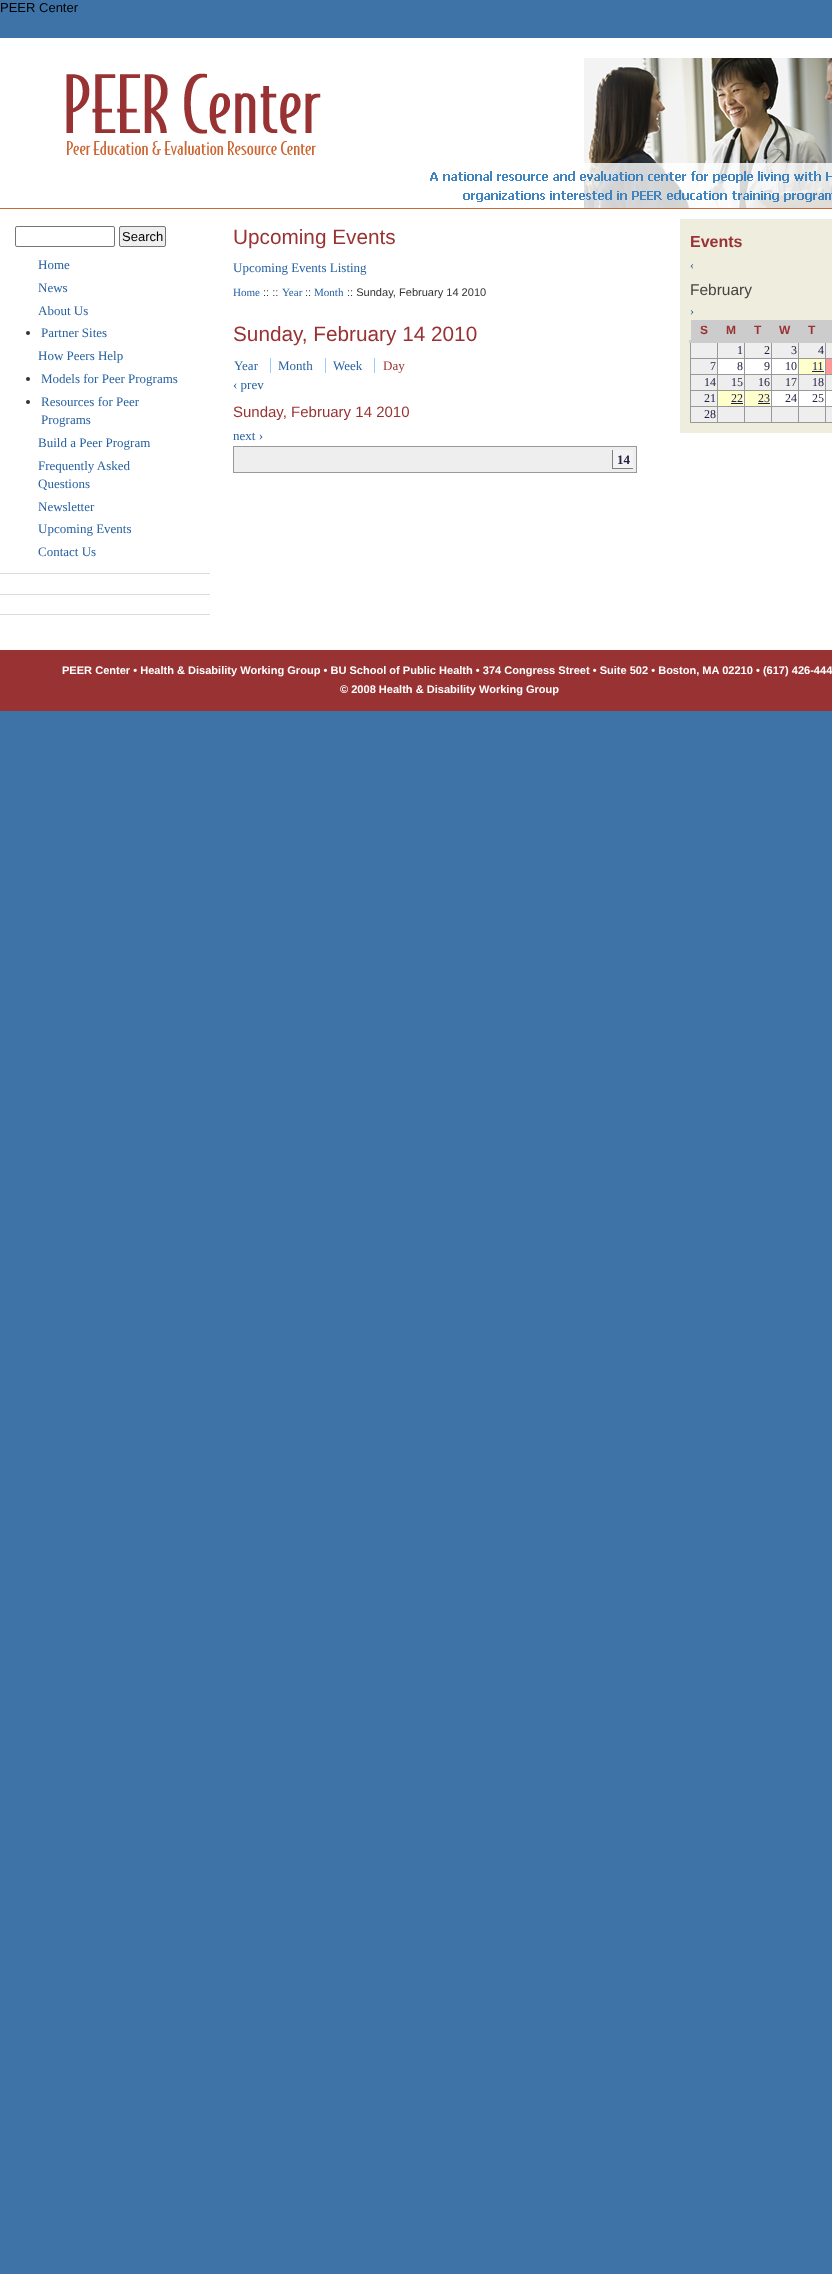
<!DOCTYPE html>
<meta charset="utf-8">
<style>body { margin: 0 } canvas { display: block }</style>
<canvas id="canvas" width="832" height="2274"></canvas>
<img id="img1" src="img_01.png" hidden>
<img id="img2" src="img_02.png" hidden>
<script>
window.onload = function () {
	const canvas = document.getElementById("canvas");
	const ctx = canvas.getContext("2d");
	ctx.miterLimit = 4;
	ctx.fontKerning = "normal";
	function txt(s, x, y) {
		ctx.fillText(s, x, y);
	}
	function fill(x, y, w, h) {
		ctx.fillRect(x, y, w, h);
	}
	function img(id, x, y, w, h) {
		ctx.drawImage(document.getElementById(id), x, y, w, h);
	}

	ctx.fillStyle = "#3E73A8";
	fill(0, 0, 832, 2274);
	ctx.fillStyle = "#FFFFFF";
	fill(0, 38, 832, 612);
	ctx.fillStyle = "#CC6633";
	fill(0, 208, 832, 1);
	img("img1", 66, 73, 255, 82);
	img("img2", 430, 58, 402, 150);
	ctx.beginPath();
	ctx.roundRect(15.5, 226.5, 99, 20, 1.5);
	ctx.strokeStyle = "#767676";
	ctx.stroke();
	ctx.fillStyle = "#EFEFEF";
	ctx.beginPath();
	ctx.roundRect(119.5, 226.5, 46, 20, 1.5);
	ctx.fill();
	ctx.stroke();
	ctx.fillStyle = "#DDDDDD";
	fill(0, 573, 210, 1);
	ctx.fillStyle = "#333333";
	ctx.beginPath();
	ctx.arc(28, 333, 2, 0, Math.PI * 2);
	ctx.fill();
	ctx.beginPath();
	ctx.arc(28, 379, 2, 0, Math.PI * 2);
	ctx.fill();
	ctx.beginPath();
	ctx.arc(28, 402, 2, 0, Math.PI * 2);
	ctx.fill();
	ctx.fillStyle = "#DDDDDD";
	fill(0, 594, 210, 1);
	fill(0, 614, 210, 1);
	ctx.fillStyle = "#99CCFF";
	fill(270, 358, 1, 15);
	fill(325, 358, 1, 15);
	fill(374, 358, 1, 15);
	ctx.fillStyle = "#999999";
	fill(233, 446, 1, 27);
	ctx.fillStyle = "#EEEEEE";
	fill(234, 447, 402, 25);
	ctx.fillStyle = "#999999";
	fill(233, 446, 404, 1);
	fill(636, 446, 1, 27);
	fill(233, 472, 404, 1);
	ctx.fillStyle = "#F3F3F3";
	fill(613, 450, 20, 18);
	ctx.fillStyle = "#808080";
	fill(612, 468, 21, 1);
	fill(612, 450, 1, 19);
	ctx.fillStyle = "#EFEDDE";
	fill(680, 219, 152, 214);
	ctx.fillStyle = "#CCCCCC";
	fill(826, 320, 6, 21);
	ctx.fillStyle = "#EEEEEE";
	fill(691, 343, 141, 15);
	ctx.fillStyle = "#FF9999";
	fill(826, 358, 6, 16);
	ctx.fillStyle = "#999999";
	fill(825, 358, 7, 1);
	fill(825, 374, 7, 1);
	ctx.fillStyle = "#EEEEEE";
	fill(691, 375, 141, 15);
	ctx.fillStyle = "#999999";
	fill(825, 390, 7, 1);
	ctx.fillStyle = "#FFFFFF";
	fill(743, 391, 89, 15);
	ctx.fillStyle = "#999999";
	fill(825, 406, 7, 1);
	ctx.fillStyle = "#EEEEEE";
	fill(691, 407, 141, 15);
	ctx.fillStyle = "#999999";
	fill(825, 422, 7, 1);
	fill(825, 406, 1, 17);
	fill(798, 406, 28, 1);
	fill(825, 390, 1, 17);
	fill(798, 390, 28, 1);
	fill(825, 374, 1, 17);
	fill(798, 374, 28, 1);
	fill(825, 358, 1, 17);
	fill(798, 358, 28, 1);
	ctx.fillStyle = "#FFFFFF";
	fill(718, 359, 107, 15);
	ctx.fillStyle = "#999999";
	fill(798, 422, 28, 1);
	fill(798, 406, 1, 17);
	fill(771, 406, 28, 1);
	fill(798, 390, 1, 17);
	fill(771, 390, 28, 1);
	fill(798, 374, 1, 17);
	fill(771, 374, 28, 1);
	fill(798, 358, 1, 17);
	fill(771, 358, 28, 1);
	fill(771, 422, 28, 1);
	fill(771, 406, 1, 17);
	fill(744, 406, 28, 1);
	fill(771, 390, 1, 17);
	fill(744, 390, 28, 1);
	fill(771, 374, 1, 17);
	fill(744, 374, 28, 1);
	fill(771, 358, 1, 17);
	fill(744, 358, 28, 1);
	fill(744, 422, 28, 1);
	fill(744, 406, 1, 17);
	fill(717, 406, 28, 1);
	fill(744, 390, 1, 17);
	fill(717, 390, 28, 1);
	fill(744, 374, 1, 17);
	fill(717, 374, 28, 1);
	fill(744, 358, 1, 17);
	fill(717, 358, 28, 1);
	fill(717, 422, 28, 1);
	fill(717, 406, 1, 17);
	fill(690, 406, 28, 1);
	fill(717, 390, 1, 17);
	fill(690, 390, 28, 1);
	fill(717, 374, 1, 17);
	fill(690, 374, 28, 1);
	fill(717, 358, 1, 17);
	fill(690, 358, 28, 1);
	fill(717, 341, 1, 18);
	fill(744, 341, 1, 18);
	fill(771, 341, 1, 18);
	fill(798, 341, 1, 18);
	fill(825, 341, 1, 18);
	fill(690, 422, 28, 1);
	fill(690, 406, 1, 17);
	fill(690, 390, 1, 17);
	fill(690, 374, 1, 17);
	fill(690, 341, 1, 34);
	ctx.fillStyle = "#CCCCCC";
	fill(689, 340, 143, 3);
	fill(691, 320, 135, 20);
	ctx.fillStyle = "#EEEEEE";
	fill(691, 359, 26, 15);
	ctx.fillStyle = "#FFFFCC";
	fill(799, 359, 25, 15);
	ctx.fillStyle = "#222244";
	fill(812, 371, 12, 1);
	ctx.fillStyle = "#EEEEEE";
	fill(691, 391, 26, 15);
	ctx.fillStyle = "#FFFFCC";
	fill(718, 391, 25, 15);
	ctx.fillStyle = "#222244";
	fill(731, 403, 12, 1);
	ctx.fillStyle = "#FFFFCC";
	fill(745, 391, 25, 15);
	ctx.fillStyle = "#222244";
	fill(758, 403, 12, 1);
	ctx.fillStyle = "#993333";
	fill(0, 650, 832, 61);
	ctx.font = "13px Liberation Sans";
	ctx.fillStyle = "#000000";
	txt("PEER Center", 0, 12);
	txt("Search", 122, 241);
	ctx.font = "13px Liberation Serif";
	ctx.fillStyle = "#2862A1";
	txt("Home", 38, 269);
	txt("News", 38, 292);
	txt("About Us", 38, 315);
	txt("Partner Sites", 41, 337);
	txt("How Peers Help", 38, 360);
	txt("Models for Peer Programs", 41, 383);
	txt("Resources for Peer", 41, 406);
	txt("Programs", 41, 424);
	txt("Build a Peer Program", 38, 447);
	txt("Frequently Asked", 38, 470);
	txt("Questions", 38, 488);
	txt("Newsletter", 38, 511);
	txt("Upcoming Events", 38, 533);
	txt("Contact Us", 38, 556);
	ctx.font = "20.75px Liberation Sans";
	ctx.fillStyle = "#993333";
	txt("Upcoming Events", 233, 244);
	ctx.font = "13px Liberation Serif";
	ctx.fillStyle = "#2862A1";
	txt("Upcoming Events Listing", 233, 272);
	ctx.font = "11.05px Liberation Serif";
	txt("Home", 233, 296);
	ctx.font = "11.05px Liberation Sans";
	ctx.fillStyle = "#333333";
	txt(":: ::", 263, 296);
	ctx.font = "11.05px Liberation Serif";
	ctx.fillStyle = "#2862A1";
	txt("Year", 282, 296);
	ctx.font = "11.05px Liberation Sans";
	ctx.fillStyle = "#333333";
	txt("::", 305, 296);
	ctx.font = "11.05px Liberation Serif";
	ctx.fillStyle = "#2862A1";
	txt("Month", 314, 296);
	ctx.font = "11.05px Liberation Sans";
	ctx.fillStyle = "#333333";
	txt(":: Sunday, February 14 2010", 347, 296);
	ctx.font = "20.75px Liberation Sans";
	ctx.fillStyle = "#993333";
	txt("Sunday, February 14 2010", 233, 341);
	ctx.font = "13px Liberation Serif";
	ctx.fillStyle = "#2862A1";
	txt("Year", 234, 370);
	txt("Month", 278, 370);
	txt("Week", 333, 370);
	ctx.fillStyle = "#993333";
	txt("Day", 383, 370);
	ctx.fillStyle = "#2862A1";
	txt("‹ prev", 233, 389);
	ctx.font = "15px Liberation Sans";
	ctx.fillStyle = "#993333";
	txt("Sunday, February 14 2010", 233, 417);
	ctx.font = "13px Liberation Serif";
	ctx.fillStyle = "#2862A1";
	txt("next ›", 233, 440);
	ctx.font = "bold 13px Liberation Serif";
	ctx.fillStyle = "#222244";
	txt("14", 617, 464);
	ctx.font = "bold 16px Liberation Sans";
	ctx.fillStyle = "#993333";
	txt("Events", 690, 247);
	ctx.font = "12px Liberation Serif";
	ctx.fillStyle = "#2862A1";
	txt("‹", 690, 269);
	ctx.font = "15.5px Liberation Sans";
	ctx.fillStyle = "#444444";
	txt("February", 690, 295);
	ctx.font = "12px Liberation Serif";
	ctx.fillStyle = "#2862A1";
	txt("›", 690, 315);
	ctx.font = "bold 12px Liberation Sans";
	ctx.fillStyle = "#993333";
	txt("S", 700, 334);
	txt("M", 726, 334);
	txt("T", 754, 334);
	txt("W", 779, 334);
	txt("T", 808, 334);
	ctx.font = "12px Liberation Serif";
	ctx.fillStyle = "#222244";
	txt("1", 737, 354);
	txt("2", 764, 354);
	txt("3", 791, 354);
	txt("4", 818, 354);
	txt("7", 710, 370);
	txt("8", 737, 370);
	txt("9", 764, 370);
	txt("10", 785, 370);
	txt("11", 812, 370);
	txt("14", 704, 386);
	txt("15", 731, 386);
	txt("16", 758, 386);
	txt("17", 785, 386);
	txt("18", 812, 386);
	txt("21", 704, 402);
	txt("22", 731, 402);
	txt("23", 758, 402);
	txt("24", 785, 402);
	txt("25", 812, 402);
	txt("28", 704, 418);
	ctx.font = "bold 11.05px Liberation Sans";
	ctx.fillStyle = "#FFFFFF";
	txt("PEER Center • Health & Disability Working Group • BU School of Public Health • 374 Congress Street • Suite 502 • Boston, MA 02210 • (617) 426-444", 62, 674);
	txt("© 2008 Health & Disability Working Group", 340, 693);
};
</script>
